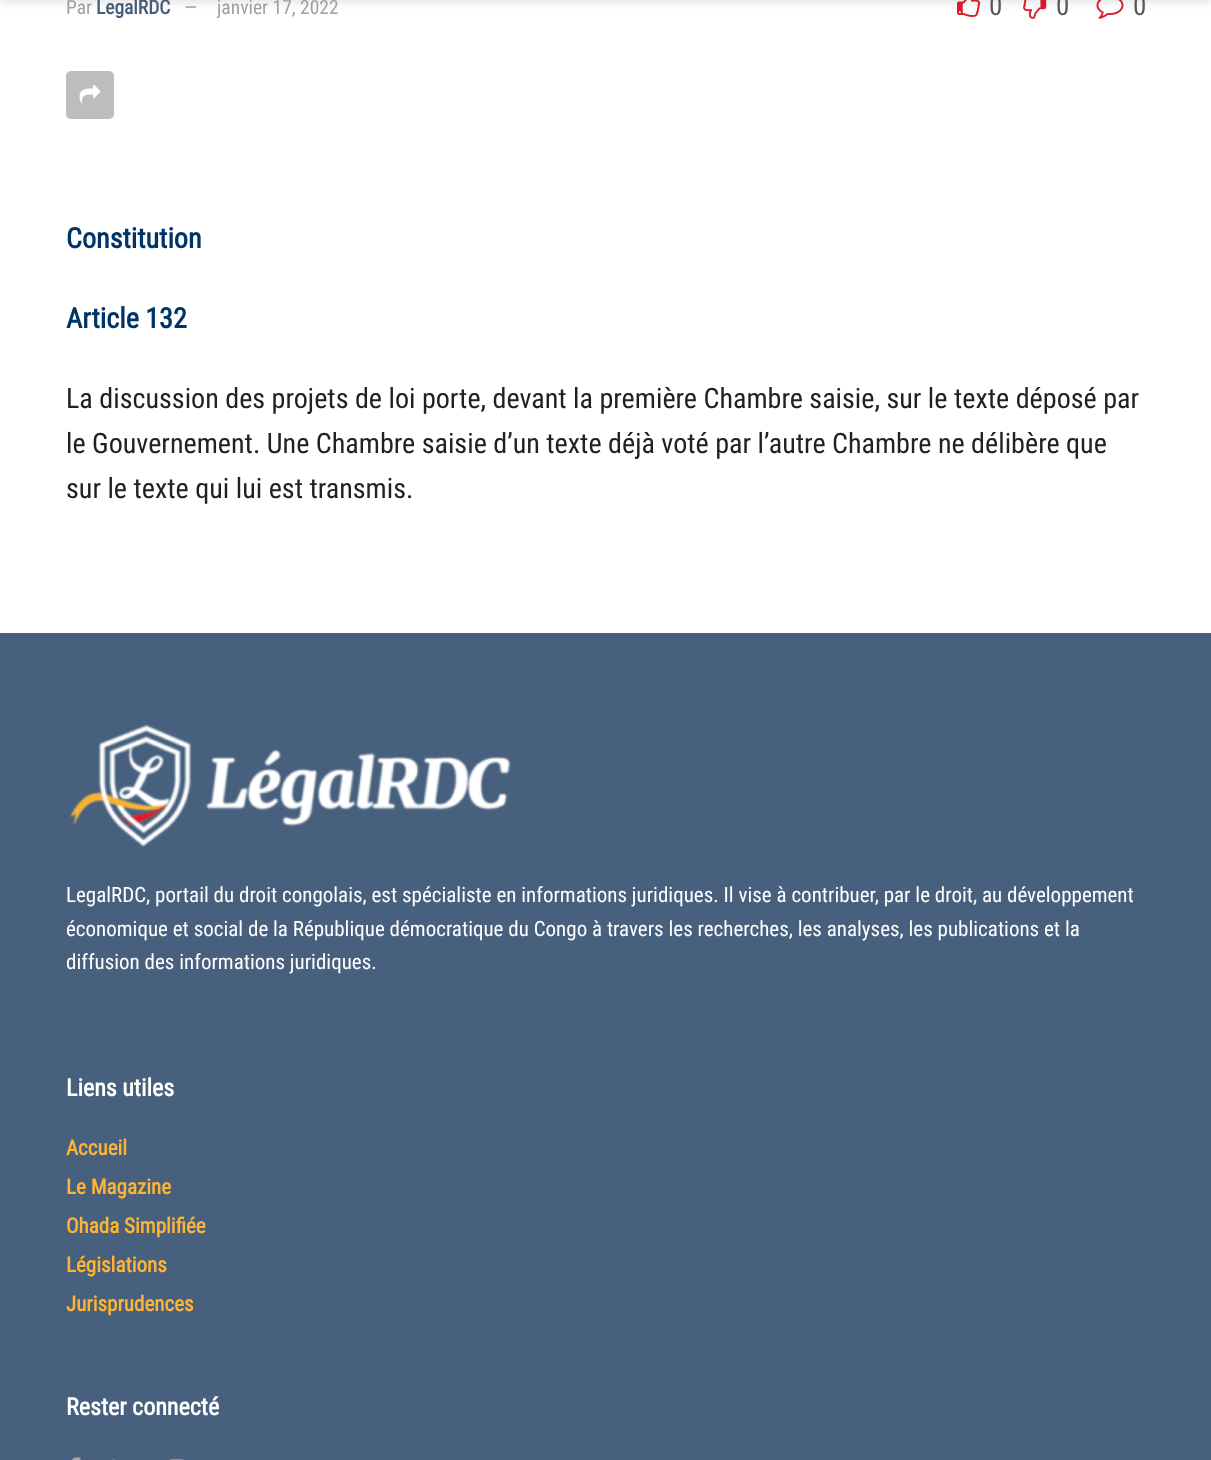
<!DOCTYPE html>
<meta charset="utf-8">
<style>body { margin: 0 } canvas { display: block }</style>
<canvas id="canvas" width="1211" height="1460"></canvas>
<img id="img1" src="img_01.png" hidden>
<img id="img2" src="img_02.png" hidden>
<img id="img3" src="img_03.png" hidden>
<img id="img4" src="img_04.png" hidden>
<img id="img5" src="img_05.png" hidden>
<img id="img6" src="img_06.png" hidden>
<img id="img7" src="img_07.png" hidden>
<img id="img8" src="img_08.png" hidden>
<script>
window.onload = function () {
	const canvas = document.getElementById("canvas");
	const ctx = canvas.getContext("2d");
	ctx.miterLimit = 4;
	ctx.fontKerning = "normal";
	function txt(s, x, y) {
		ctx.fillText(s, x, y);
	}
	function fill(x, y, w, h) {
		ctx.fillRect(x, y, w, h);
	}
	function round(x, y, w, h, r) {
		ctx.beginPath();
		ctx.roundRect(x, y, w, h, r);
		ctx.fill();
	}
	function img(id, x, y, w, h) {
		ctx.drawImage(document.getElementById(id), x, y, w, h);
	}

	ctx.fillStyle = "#FFFFFF";
	fill(0, 0, 1211, 1460);
	img("img1", 957, 0, 24, 17);
	img("img2", 1023, 0, 24, 19);
	img("img3", 1096, 0, 28, 19);
	ctx.fillStyle = "rgba(0, 0, 0, 0.1)";
	ctx.filter = "blur(4.5px)";
	ctx.beginPath();
	ctx.rect(0, -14, 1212, 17);
	ctx.fill();
	ctx.filter = "none";
	ctx.fillStyle = "#BDBDBD";
	round(66, 71, 48, 48, 5);
	img("img4", 79, 84, 22, 20);
	ctx.fillStyle = "#47607D";
	fill(0, 633, 1211, 827);
	img("img5", 70, 724, 441, 123);
	img("img6", 72, 1457, 9, 3);
	img("img7", 112, 1459, 3, 1);
	img("img8", 169, 1459, 15, 1);
	ctx.font = "19.5px Roboto Condensed";
	ctx.fillStyle = "#A0A0A0";
	txt("Par", 66, 14);
	ctx.font = "bold 19.5px Roboto Condensed";
	ctx.fillStyle = "#455D7A";
	txt("LegalRDC", 96, 14);
	ctx.font = "19.5px Roboto Condensed";
	ctx.fillStyle = "#A0A0A0";
	txt("—", 184, 14);
	txt("janvier 17, 2022", 217, 14);
	ctx.font = "27px Roboto Condensed";
	ctx.fillStyle = "#53585C";
	txt("0", 989, 15);
	txt("0", 1056, 15);
	txt("0", 1133, 15);
	ctx.font = "bold 28.1px Roboto Condensed";
	ctx.fillStyle = "#003366";
	txt("Constitution", 66, 248);
	txt("Article 132", 66, 328);
	ctx.font = "28.1px Roboto Condensed";
	ctx.fillStyle = "#212121";
	txt("La discussion des projets de loi porte, devant la première Chambre saisie, sur le texte déposé par", 66, 408);
	txt("le Gouvernement. Une Chambre saisie d’un texte déjà voté par l’autre Chambre ne délibère que", 66, 453);
	txt("sur le texte qui lui est transmis.", 66, 498);
	ctx.font = "21px Roboto Condensed";
	ctx.fillStyle = "#FFFFFF";
	txt("LegalRDC, portail du droit congolais, est spécialiste en informations juridiques. Il vise à contribuer, par le droit, au développement", 66, 902);
	txt("économique et social de la République démocratique du Congo à travers les recherches, les analyses, les publications et la", 66, 936);
	txt("diffusion des informations juridiques.", 66, 969);
	ctx.font = "bold 24px Roboto Condensed";
	txt("Liens utiles", 66, 1096);
	ctx.font = "bold 21px Roboto Condensed";
	ctx.fillStyle = "#FEB432";
	txt("Accueil", 66, 1155);
	txt("Le Magazine", 66, 1194);
	txt("Ohada Simplifiée", 66, 1233);
	txt("Législations", 66, 1272);
	txt("Jurisprudences", 66, 1311);
	ctx.font = "bold 24px Roboto Condensed";
	ctx.fillStyle = "#FFFFFF";
	txt("Rester connecté", 66, 1415);
};
</script>
